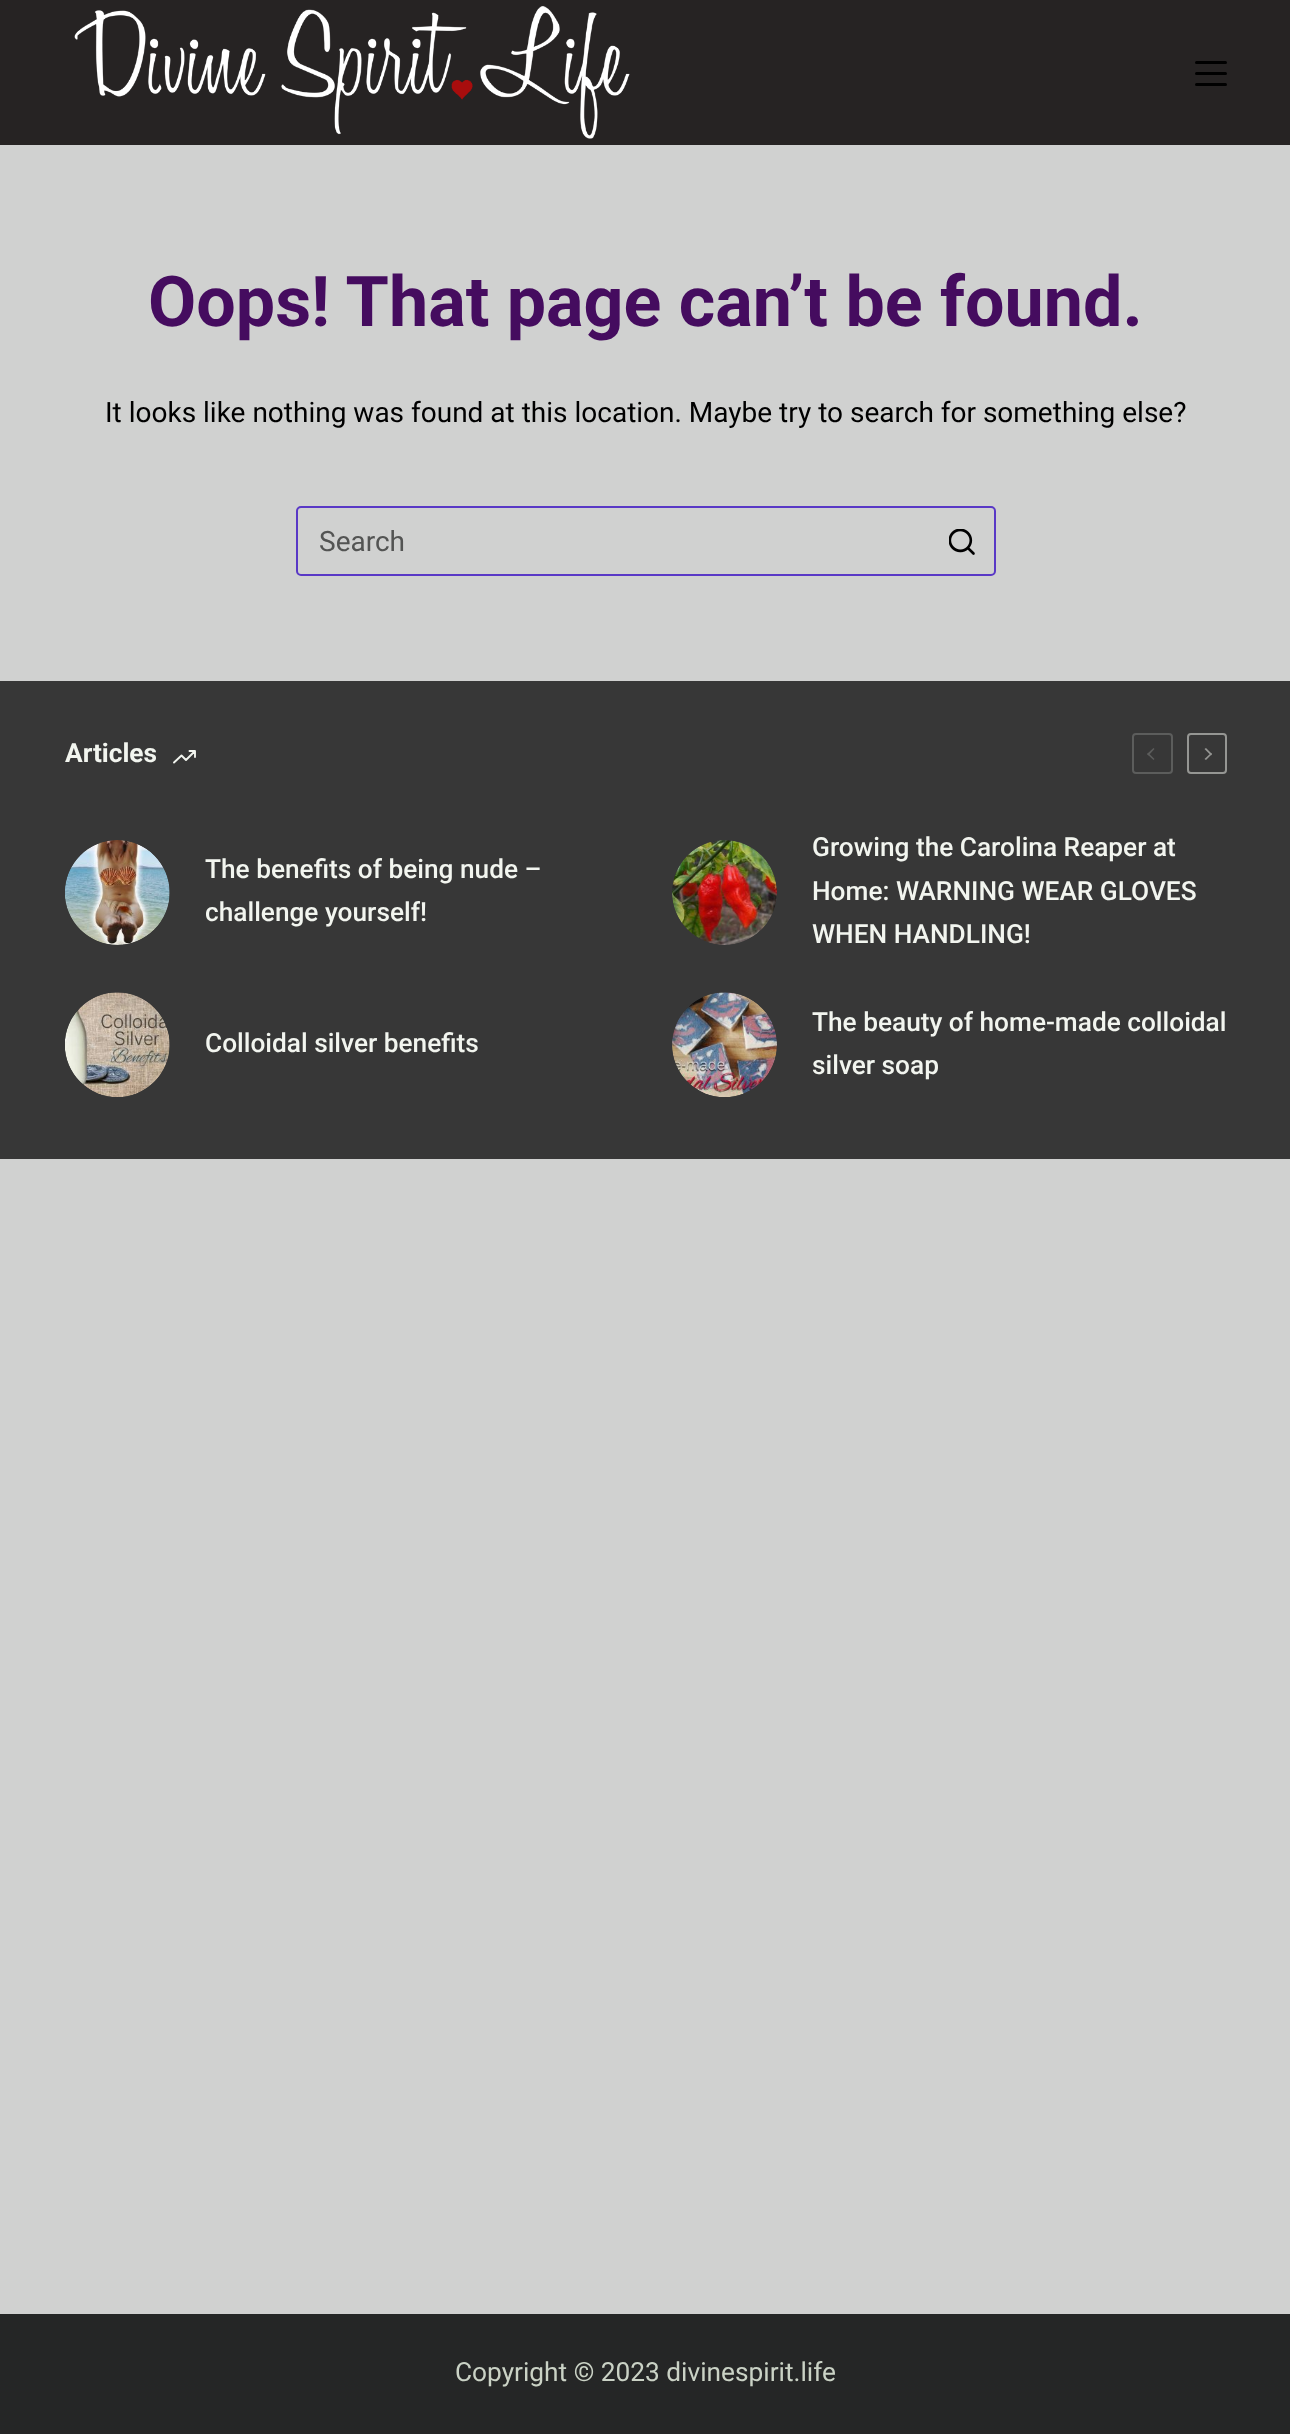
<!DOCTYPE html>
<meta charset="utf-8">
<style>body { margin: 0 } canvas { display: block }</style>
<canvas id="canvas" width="1290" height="2434"></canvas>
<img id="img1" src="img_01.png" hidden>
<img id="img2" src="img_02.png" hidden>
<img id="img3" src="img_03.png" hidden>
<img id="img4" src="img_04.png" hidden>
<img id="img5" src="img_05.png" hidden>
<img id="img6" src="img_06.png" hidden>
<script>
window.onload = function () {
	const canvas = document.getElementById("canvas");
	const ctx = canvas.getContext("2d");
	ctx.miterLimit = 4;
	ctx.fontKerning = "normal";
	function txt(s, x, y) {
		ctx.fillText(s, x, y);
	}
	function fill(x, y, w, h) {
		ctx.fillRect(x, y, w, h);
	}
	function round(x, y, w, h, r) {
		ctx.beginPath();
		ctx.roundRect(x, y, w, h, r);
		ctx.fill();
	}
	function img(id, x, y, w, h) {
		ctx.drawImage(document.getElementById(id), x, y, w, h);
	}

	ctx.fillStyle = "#D0D1D0";
	fill(0, 0, 1290, 2434);
	ctx.fillStyle = "#262323";
	fill(0, 0, 1290, 145);
	img("img1", 74, 6, 556, 133);
	ctx.fillStyle = "#000000";
	round(1195, 61, 32, 3, 1.5);
	round(1195, 72, 32, 3, 1.5);
	round(1195, 83, 32, 3, 1.5);
	ctx.beginPath();
	ctx.roundRect(297, 507, 698, 68, 4);
	ctx.strokeStyle = "#5938C6";
	ctx.lineWidth = 2;
	ctx.stroke();
	img("img2", 949, 529, 26, 26);
	ctx.fillStyle = "#373737";
	fill(0, 681, 1290, 478);
	ctx.beginPath();
	ctx.moveTo(195, 751);
	ctx.lineTo(186, 760);
	ctx.lineTo(181.5, 755.5);
	ctx.lineTo(174, 762.5);
	ctx.moveTo(189.5, 751);
	ctx.lineTo(195, 751);
	ctx.lineTo(195, 757);
	ctx.strokeStyle = "#F2F5EF";
	ctx.lineWidth = 1.9;
	ctx.lineCap = "round";
	ctx.lineJoin = "round";
	ctx.stroke();
	ctx.beginPath();
	ctx.roundRect(1133, 734, 39, 39, 3);
	ctx.strokeStyle = "#5C5D5C";
	ctx.lineWidth = 2;
	ctx.lineJoin = "miter";
	ctx.stroke();
	ctx.fillStyle = "#5C5D5C";
	ctx.beginPath();
	ctx.moveTo(1147, 754);
	ctx.lineTo(1153.5, 748);
	ctx.lineTo(1154.5, 749);
	ctx.lineTo(1148.5, 755.5);
	ctx.closePath();
	ctx.fill();
	ctx.beginPath();
	ctx.moveTo(1147, 754);
	ctx.lineTo(1148.5, 753);
	ctx.lineTo(1154.5, 759);
	ctx.lineTo(1153.5, 760);
	ctx.closePath();
	ctx.fill();
	ctx.beginPath();
	ctx.roundRect(1188, 734, 38, 39, 3);
	ctx.strokeStyle = "#959693";
	ctx.stroke();
	ctx.fillStyle = "#959693";
	ctx.beginPath();
	ctx.moveTo(1212, 754);
	ctx.lineTo(1206, 760);
	ctx.lineTo(1204.5, 759);
	ctx.lineTo(1211, 753);
	ctx.closePath();
	ctx.fill();
	ctx.beginPath();
	ctx.moveTo(1212, 754);
	ctx.lineTo(1211, 755.5);
	ctx.lineTo(1204.5, 749);
	ctx.lineTo(1206, 748);
	ctx.closePath();
	ctx.fill();
	img("img3", 65, 840, 105, 105);
	img("img4", 672, 840, 105, 105);
	img("img5", 65, 992, 105, 105);
	img("img6", 672, 992, 105, 105);
	ctx.fillStyle = "#252626";
	fill(0, 2314, 1290, 120);
	ctx.font = "bold 70px Roboto";
	ctx.fillStyle = "#450C5F";
	txt("Oops! That page can’t be found.", 148, 326);
	ctx.font = "28px Roboto";
	ctx.fillStyle = "#000000";
	txt("It looks like nothing was found at this location. Maybe try to search for something else?", 105, 422);
	ctx.fillStyle = "#535453";
	txt("Search", 319, 551);
	ctx.font = "bold 26.25px Roboto";
	ctx.fillStyle = "#F2F5EF";
	txt("Articles", 65, 762);
	ctx.font = "500 26.25px Roboto";
	txt("The benefits of being nude –", 205, 878);
	txt("challenge yourself!", 205, 921);
	txt("Growing the Carolina Reaper at", 812, 856);
	txt("Home: WARNING WEAR GLOVES", 812, 900);
	txt("WHEN HANDLING!", 812, 943);
	txt("Colloidal silver benefits", 205, 1052);
	txt("The beauty of home-made colloidal", 812, 1031);
	txt("silver soap", 812, 1074);
	ctx.font = "26.25px Roboto";
	ctx.fillStyle = "#CAD2C5";
	txt("Copyright © 2023 divinespirit.life", 455, 2381);
};
</script>
